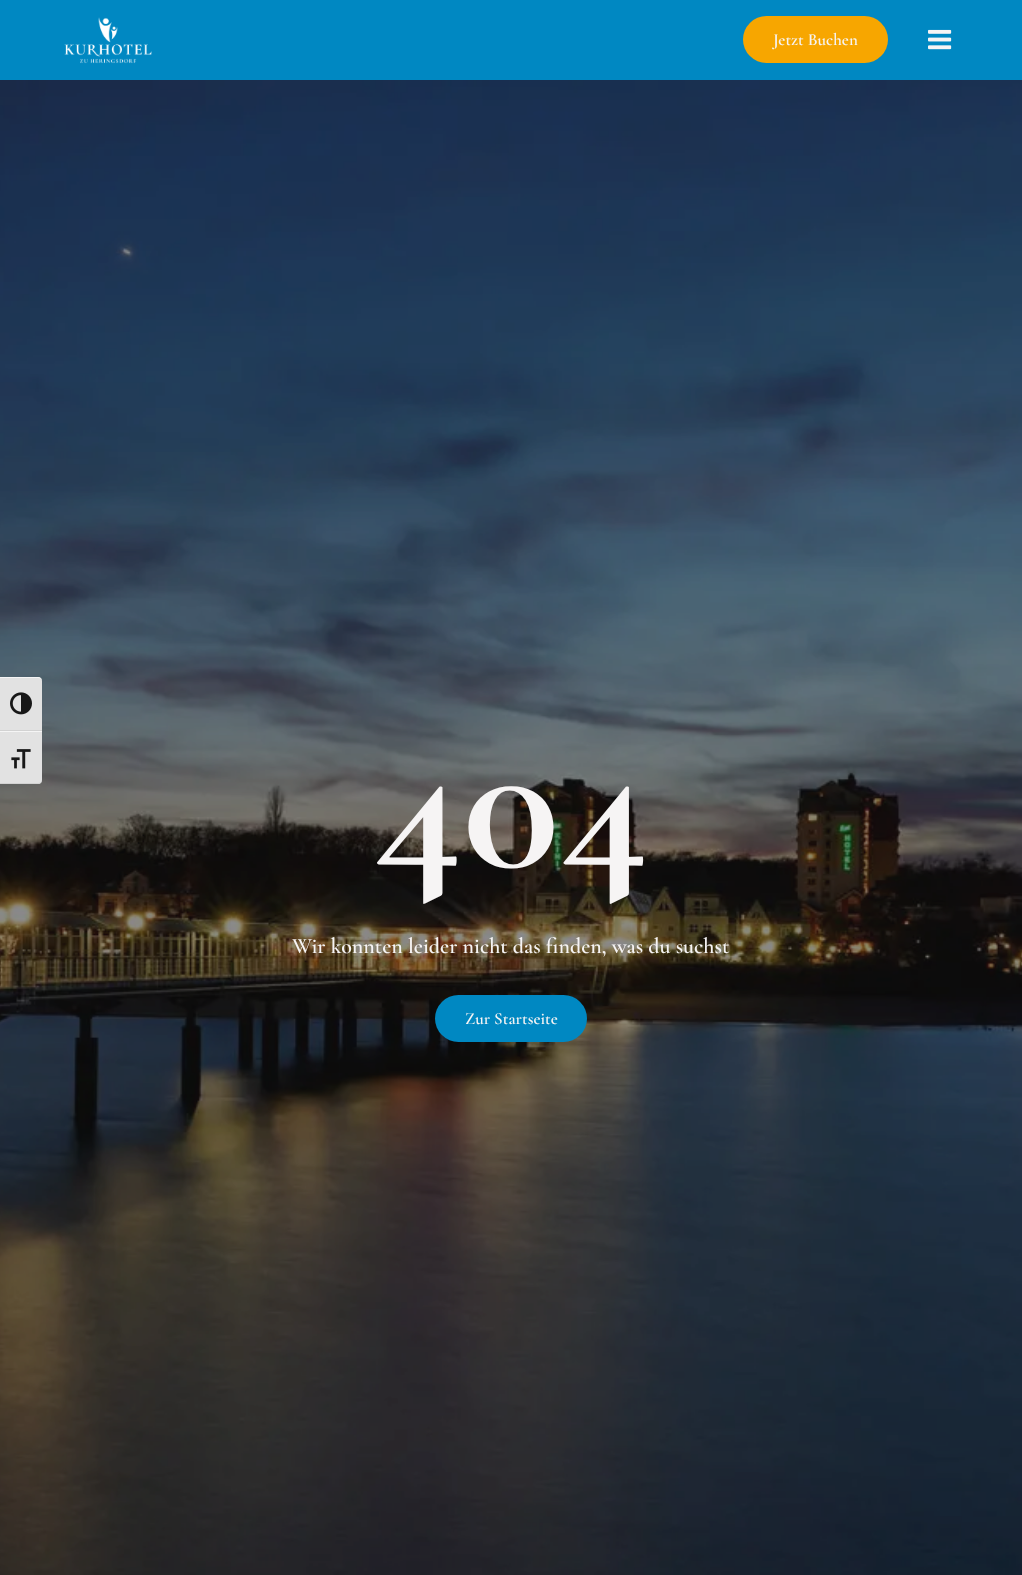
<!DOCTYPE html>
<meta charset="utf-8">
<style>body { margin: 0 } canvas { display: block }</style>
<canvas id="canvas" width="1022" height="1575"></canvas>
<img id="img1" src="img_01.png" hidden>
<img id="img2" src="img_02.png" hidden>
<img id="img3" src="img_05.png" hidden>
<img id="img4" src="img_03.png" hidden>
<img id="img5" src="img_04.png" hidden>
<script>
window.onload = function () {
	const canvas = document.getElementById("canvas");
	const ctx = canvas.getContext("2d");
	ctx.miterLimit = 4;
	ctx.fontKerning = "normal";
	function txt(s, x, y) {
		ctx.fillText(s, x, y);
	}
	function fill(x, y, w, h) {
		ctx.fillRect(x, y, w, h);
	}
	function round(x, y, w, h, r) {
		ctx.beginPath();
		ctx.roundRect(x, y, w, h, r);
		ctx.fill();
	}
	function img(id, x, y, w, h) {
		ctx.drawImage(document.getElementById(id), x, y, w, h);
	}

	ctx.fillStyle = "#FFFFFF";
	fill(0, 0, 1022, 1575);
	ctx.fillStyle = "#0088C2";
	fill(0, 0, 1022, 80);
	img("img1", 64, 17, 88, 47);
	ctx.fillStyle = "#F7A600";
	round(743, 16, 145, 47, 23.5);
	img("img2", 928, 29, 24, 21);
	img("img3", 0, 80, 1022, 1495);
	ctx.fillStyle = "#E2E2E2";
	ctx.beginPath();
	ctx.roundRect(0, 677, 42, 54, [0, 4, 0, 0]);
	ctx.fill();
	ctx.fillStyle = "#F5F5F5";
	ctx.beginPath();
	ctx.moveTo(0, 677);
	ctx.lineTo(0, 678);
	ctx.lineTo(38, 678);
	ctx.bezierCurveTo(40, 678, 42, 679, 42, 681);
	ctx.bezierCurveTo(42, 679, 40, 677, 38, 677);
	ctx.closePath();
	ctx.fill();
	ctx.fillStyle = "#D2D2D2";
	fill(0, 730, 42, 1);
	img("img4", 10, 692, 22, 23);
	ctx.fillStyle = "#E2E2E2";
	ctx.beginPath();
	ctx.roundRect(0, 731, 42, 53, [0, 0, 4, 0]);
	ctx.fill();
	ctx.fillStyle = "#F5F5F5";
	fill(0, 731, 42, 1);
	ctx.fillStyle = "#D2D2D2";
	ctx.beginPath();
	ctx.moveTo(0, 783);
	ctx.lineTo(0, 784);
	ctx.lineTo(38, 784);
	ctx.bezierCurveTo(40, 784, 42, 782, 42, 780);
	ctx.bezierCurveTo(42, 782, 40, 783, 38, 783);
	ctx.closePath();
	ctx.fill();
	img("img5", 11, 749, 20, 20);
	ctx.fillStyle = "#0088C2";
	round(435, 995, 152, 47, 23.5);
	ctx.font = "600 17px Cormorant Garamond";
	ctx.fillStyle = "#F6F4F4";
	txt("Jetzt Buchen", 773, 45);
	ctx.font = "bold 200px Cormorant Garamond";
	txt("404", 372, 866);
	ctx.font = "600 22px Cormorant Garamond";
	txt("Wir konnten leider nicht das finden, was du suchst", 292, 953);
	ctx.font = "600 17px Cormorant Garamond";
	txt("Zur Startseite", 465, 1024);
};
</script>
